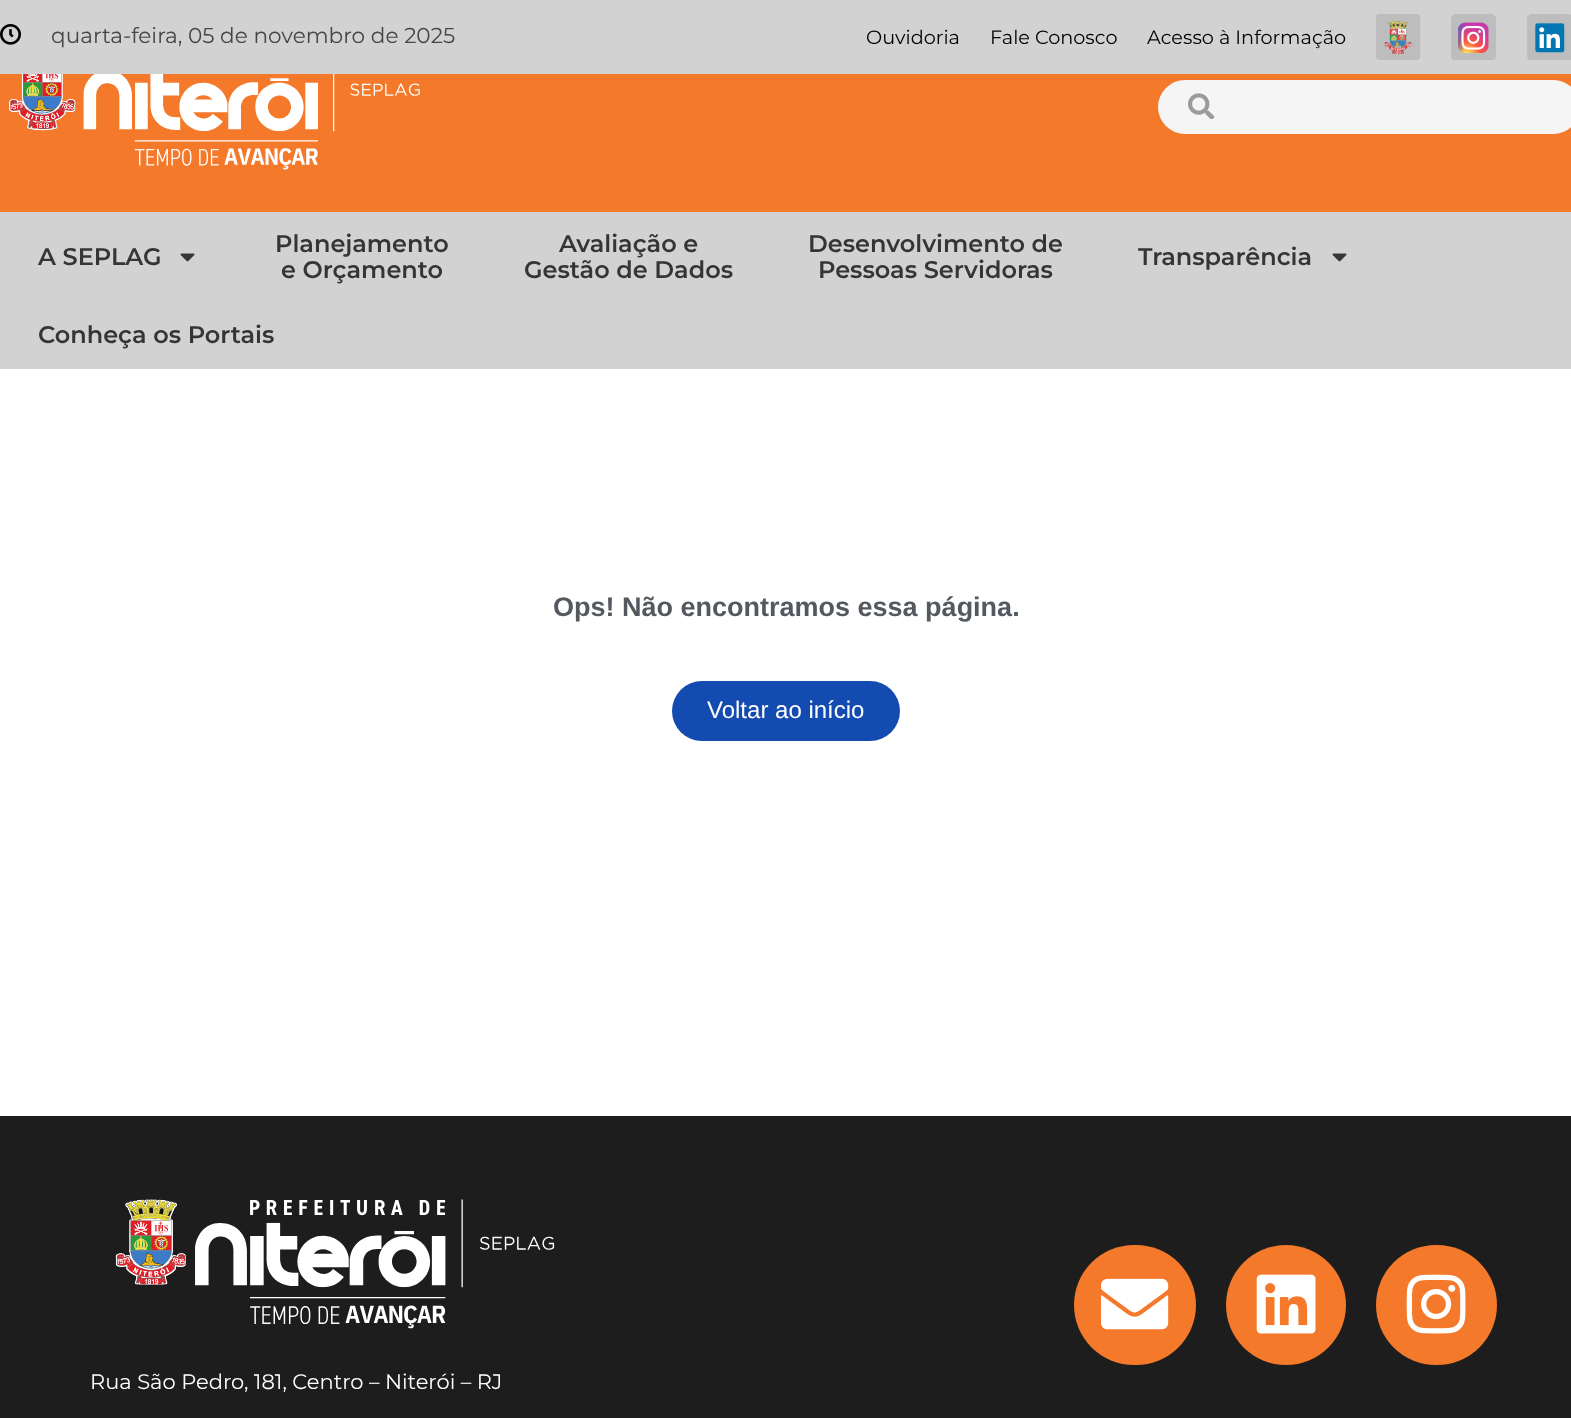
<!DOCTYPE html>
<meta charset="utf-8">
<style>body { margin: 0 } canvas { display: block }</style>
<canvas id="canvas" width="1571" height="1418"></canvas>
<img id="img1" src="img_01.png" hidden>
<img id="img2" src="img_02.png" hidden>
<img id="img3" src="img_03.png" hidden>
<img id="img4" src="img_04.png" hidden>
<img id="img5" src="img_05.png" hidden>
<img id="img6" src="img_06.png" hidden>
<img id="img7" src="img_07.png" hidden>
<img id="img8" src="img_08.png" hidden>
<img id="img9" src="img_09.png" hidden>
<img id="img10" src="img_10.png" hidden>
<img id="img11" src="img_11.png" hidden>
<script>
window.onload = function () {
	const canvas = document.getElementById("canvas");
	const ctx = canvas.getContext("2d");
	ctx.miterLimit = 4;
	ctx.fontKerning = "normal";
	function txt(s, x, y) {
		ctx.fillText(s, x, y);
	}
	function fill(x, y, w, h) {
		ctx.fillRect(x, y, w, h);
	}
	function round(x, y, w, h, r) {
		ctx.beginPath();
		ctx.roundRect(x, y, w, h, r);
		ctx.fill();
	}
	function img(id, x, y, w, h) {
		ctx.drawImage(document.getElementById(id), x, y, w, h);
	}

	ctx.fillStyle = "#FFFFFF";
	fill(0, 0, 1571, 1418);
	ctx.fillStyle = "#D2D2D2";
	fill(0, 0, 1571, 74);
	img("img1", 0, 24, 21, 21);
	img("img2", 1376, 14, 45, 46);
	img("img3", 1451, 14, 45, 46);
	img("img4", 1527, 14, 44, 46);
	ctx.fillStyle = "#F4792A";
	fill(0, 74, 1571, 138);
	img("img5", 9, 74, 411, 96);
	ctx.fillStyle = "#F5F5F5";
	round(1158, 80, 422, 54, 27);
	img("img6", 1188, 93, 27, 26);
	ctx.fillStyle = "#D2D2D2";
	fill(0, 212, 1571, 157);
	img("img7", 180, 253, 15, 9);
	img("img7", 1332, 253, 15, 9);
	ctx.fillStyle = "#134BB1";
	round(672, 681, 228, 60, 30);
	ctx.fillStyle = "#1D1D1D";
	fill(0, 1116, 1571, 302);
	ctx.fillStyle = "#F4792A";
	round(1074, 1245, 122, 120, 60);
	img("img8", 1101, 1278, 68, 52);
	ctx.beginPath();
	ctx.arc(1286, 1305, 60, 0, Math.PI * 2);
	ctx.fill();
	img("img9", 1256, 1274, 60, 60);
	round(1376, 1245, 121, 120, 60);
	img("img10", 1406, 1274, 60, 60);
	img("img11", 115, 1199, 440, 130);
	ctx.font = "21.6px Montserrat";
	ctx.fillStyle = "#464646";
	txt("quarta-feira, 05 de novembro de 2025", 51, 43);
	ctx.font = "19.25px Montserrat";
	ctx.fillStyle = "#000000";
	txt("Ouvidoria", 866, 44);
	txt("Fale Conosco", 990, 44);
	txt("Acesso à Informação", 1147, 44);
	ctx.font = "600 24px Montserrat";
	ctx.fillStyle = "#353535";
	txt("A SEPLAG", 38, 265);
	txt("Planejamento", 275, 252);
	txt("e Orçamento", 281, 278);
	txt("Avaliação e", 559, 252);
	txt("Gestão de Dados", 524, 278);
	txt("Desenvolvimento de", 808, 252);
	txt("Pessoas Servidoras", 818, 278);
	txt("Transparência", 1138, 265);
	txt("Conheça os Portais", 38, 343);
	ctx.font = "bold 27px Liberation Sans";
	ctx.fillStyle = "#54595F";
	txt("Ops! Não encontramos essa página.", 553, 616);
	ctx.font = "24px Liberation Sans";
	ctx.fillStyle = "#FFFFFF";
	txt("Voltar ao início", 707, 718);
	ctx.font = "21px Montserrat";
	txt("Rua São Pedro, 181, Centro – Niterói – RJ", 90, 1389);
};
</script>
